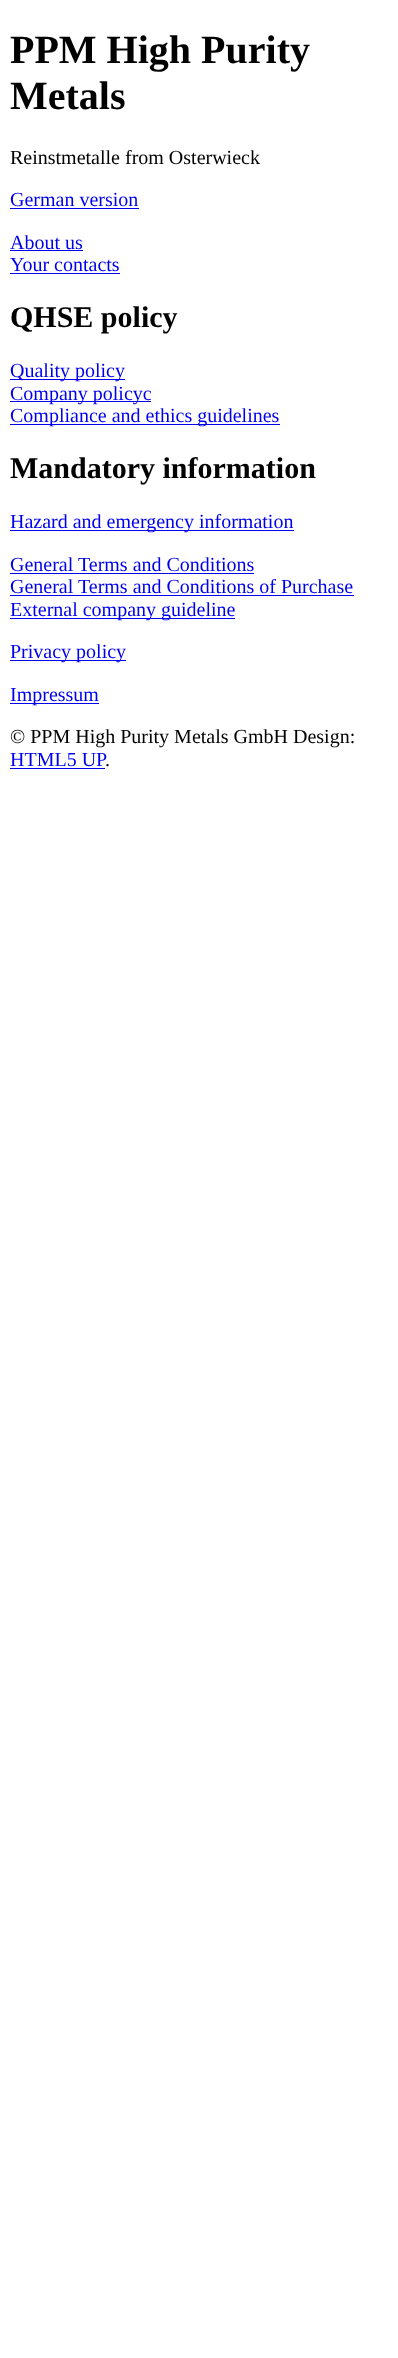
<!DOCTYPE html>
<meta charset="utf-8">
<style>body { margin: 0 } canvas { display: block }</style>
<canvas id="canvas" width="398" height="2358"></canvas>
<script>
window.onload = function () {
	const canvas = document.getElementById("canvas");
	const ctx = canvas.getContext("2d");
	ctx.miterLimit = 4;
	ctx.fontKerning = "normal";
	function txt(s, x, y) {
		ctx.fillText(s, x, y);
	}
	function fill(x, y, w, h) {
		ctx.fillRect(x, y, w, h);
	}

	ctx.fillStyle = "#FFFFFF";
	fill(0, 0, 398, 2358);
	ctx.fillStyle = "#0000EE";
	fill(10, 208, 129, 1);
	fill(10, 250, 73, 1);
	fill(10, 273, 110, 1);
	fill(10, 379, 115, 1);
	fill(10, 401, 141, 1);
	fill(10, 424, 270, 1);
	fill(10, 530, 284, 1);
	fill(10, 573, 244, 1);
	fill(10, 595, 344, 1);
	fill(10, 618, 225, 1);
	fill(10, 660, 116, 1);
	fill(10, 703, 89, 1);
	fill(10, 768, 95, 1);
	ctx.font = "bold 40px Liberation Serif";
	ctx.fillStyle = "#000000";
	txt("PPM High Purity", 10, 63);
	txt("Metals", 10, 109);
	ctx.font = "20px Liberation Serif";
	txt("Reinstmetalle from Osterwieck", 10, 164);
	ctx.fillStyle = "#0000EE";
	txt("German version", 10, 206);
	txt("About us", 10, 249);
	txt("Your contacts", 10, 271);
	ctx.font = "bold 30px Liberation Serif";
	ctx.fillStyle = "#000000";
	txt("QHSE policy", 10, 327);
	ctx.font = "20px Liberation Serif";
	ctx.fillStyle = "#0000EE";
	txt("Quality policy", 10, 377);
	txt("Company policyc", 10, 400);
	txt("Compliance and ethics guidelines", 10, 422);
	ctx.font = "bold 30px Liberation Serif";
	ctx.fillStyle = "#000000";
	txt("Mandatory information", 10, 478);
	ctx.font = "20px Liberation Serif";
	ctx.fillStyle = "#0000EE";
	txt("Hazard and emergency information", 10, 528);
	txt("General Terms and Conditions", 10, 571);
	txt("General Terms and Conditions of Purchase", 10, 593);
	txt("External company guideline", 10, 616);
	txt("Privacy policy", 10, 658);
	txt("Impressum", 10, 701);
	ctx.fillStyle = "#000000";
	txt("© PPM High Purity Metals GmbH Design:", 10, 743);
	ctx.fillStyle = "#0000EE";
	txt("HTML5 UP", 10, 766);
	ctx.fillStyle = "#000000";
	txt(".", 105, 766);
};
</script>
